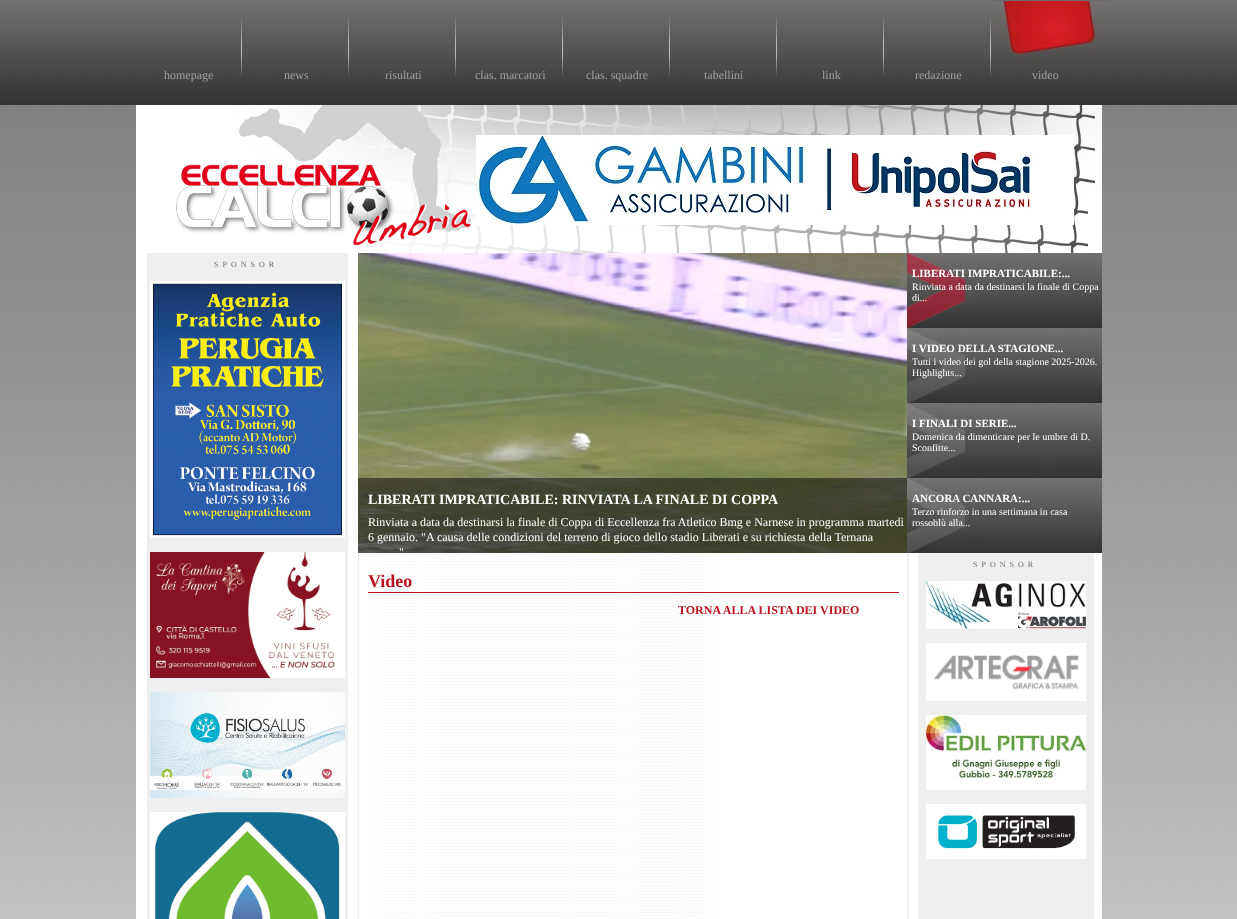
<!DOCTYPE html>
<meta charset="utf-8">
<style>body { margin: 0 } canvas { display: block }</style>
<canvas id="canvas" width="1237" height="919"></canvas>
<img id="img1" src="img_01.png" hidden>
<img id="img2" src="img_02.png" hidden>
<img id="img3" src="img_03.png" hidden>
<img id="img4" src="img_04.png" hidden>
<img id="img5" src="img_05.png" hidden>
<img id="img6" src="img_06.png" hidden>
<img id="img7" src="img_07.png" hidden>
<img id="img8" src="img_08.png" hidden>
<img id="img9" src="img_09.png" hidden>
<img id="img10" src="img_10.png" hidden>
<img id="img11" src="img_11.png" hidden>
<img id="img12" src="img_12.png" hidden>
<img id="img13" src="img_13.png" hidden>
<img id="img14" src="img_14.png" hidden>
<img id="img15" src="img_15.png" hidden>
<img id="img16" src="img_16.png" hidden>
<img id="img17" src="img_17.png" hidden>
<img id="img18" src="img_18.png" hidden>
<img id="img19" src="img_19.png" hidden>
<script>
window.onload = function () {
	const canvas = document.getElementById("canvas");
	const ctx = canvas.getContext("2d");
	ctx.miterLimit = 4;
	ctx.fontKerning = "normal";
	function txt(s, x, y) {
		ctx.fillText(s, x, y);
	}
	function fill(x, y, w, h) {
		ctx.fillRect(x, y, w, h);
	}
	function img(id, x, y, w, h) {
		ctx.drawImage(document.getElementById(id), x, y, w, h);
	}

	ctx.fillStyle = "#FFFFFF";
	fill(0, 0, 1237, 919);
	img("img1", 0, 0, 1237, 919);
	img("img2", 992, 0, 117, 58);
	img("img3", 241, 16, 1, 67);
	img("img3", 348, 16, 1, 67);
	img("img3", 455, 16, 1, 67);
	img("img3", 562, 16, 1, 67);
	img("img3", 669, 16, 1, 67);
	img("img3", 776, 16, 1, 67);
	img("img3", 883, 16, 1, 67);
	img("img3", 990, 16, 1, 67);
	fill(136, 105, 39, 148);
	img("img4", 175, 105, 927, 148);
	img("img5", 476, 135, 598, 90);
	img("img6", 136, 253, 222, 666);
	img("img7", 150, 281, 195, 257);
	img("img8", 150, 552, 195, 126);
	img("img9", 150, 692, 195, 106);
	img("img10", 150, 812, 195, 107);
	img("img11", 358, 253, 549, 300);
	ctx.fillStyle = "rgba(0, 0, 0, 0.5)";
	fill(358, 478, 549, 75);
	img("img12", 907, 253, 195, 75);
	img("img13", 907, 328, 195, 75);
	img("img13", 907, 403, 195, 75);
	img("img13", 907, 478, 195, 75);
	img("img14", 909, 553, 193, 366);
	img("img15", 926, 581, 160, 48);
	img("img16", 926, 643, 160, 58);
	img("img17", 926, 715, 160, 75);
	img("img18", 926, 804, 160, 55);
	img("img19", 358, 553, 551, 366);
	ctx.fillStyle = "#BD1220";
	fill(368, 592, 531, 1);
	ctx.font = "12px Liberation Serif";
	ctx.fillStyle = "#A19E9E";
	txt("homepage", 164, 79);
	txt("news", 284, 79);
	txt("risultati", 385, 79);
	txt("clas. marcatori", 475, 79);
	txt("clas. squadre", 586, 79);
	txt("tabellini", 704, 79);
	txt("link", 822, 79);
	txt("redazione", 915, 79);
	txt("video", 1032, 79);
	ctx.letterSpacing = "4px";
	ctx.font = "8px Liberation Serif";
	ctx.fillStyle = "#6E6D6D";
	txt("SPONSOR", 214, 267);
	ctx.letterSpacing = "0px";
	ctx.font = "bold 14px Liberation Serif";
	ctx.fillStyle = "#FFFFFF";
	txt("LIBERATI IMPRATICABILE: RINVIATA LA FINALE DI COPPA", 368, 504);
	ctx.font = "12px Liberation Serif";
	txt("Rinviata a data da destinarsi la finale di Coppa di Eccellenza fra Atletico Bmg e Narnese in programma martedì", 368, 526);
	txt("6 gennaio. \"A causa delle condizioni del terreno di gioco dello stadio Liberati e su richiesta della Ternana", 368, 541);
	txt("\"", 399, 556);
	ctx.font = "bold 11px Liberation Serif";
	txt("LIBERATI IMPRATICABILE:...", 912, 277);
	ctx.font = "10px Liberation Serif";
	txt("Rinviata a data da destinarsi la finale di Coppa", 912, 290);
	txt("di...", 912, 301);
	ctx.font = "bold 11px Liberation Serif";
	txt("I VIDEO DELLA STAGIONE...", 912, 352);
	ctx.font = "10px Liberation Serif";
	txt("Tutti i video dei gol della stagione 2025-2026.", 912, 365);
	txt("Highlights...", 912, 376);
	ctx.font = "bold 11px Liberation Serif";
	txt("I FINALI DI SERIE...", 912, 427);
	ctx.font = "10px Liberation Serif";
	txt("Domenica da dimenticare per le umbre di D.", 912, 440);
	txt("Sconfitte...", 912, 451);
	ctx.font = "bold 11px Liberation Serif";
	txt("ANCORA CANNARA:...", 912, 502);
	ctx.font = "10px Liberation Serif";
	txt("Terzo rinforzo in una settimana in casa", 912, 515);
	txt("rossoblù alla...", 912, 526);
	ctx.letterSpacing = "4px";
	ctx.font = "8px Liberation Serif";
	ctx.fillStyle = "#6E6D6D";
	txt("SPONSOR", 973, 567);
	ctx.letterSpacing = "0px";
	ctx.font = "bold 18px Liberation Serif";
	ctx.fillStyle = "#BD1220";
	txt("Video", 368, 587);
	ctx.font = "bold 12px Liberation Serif";
	txt("TORNA ALLA LISTA DEI VIDEO", 678, 614);
};
</script>
